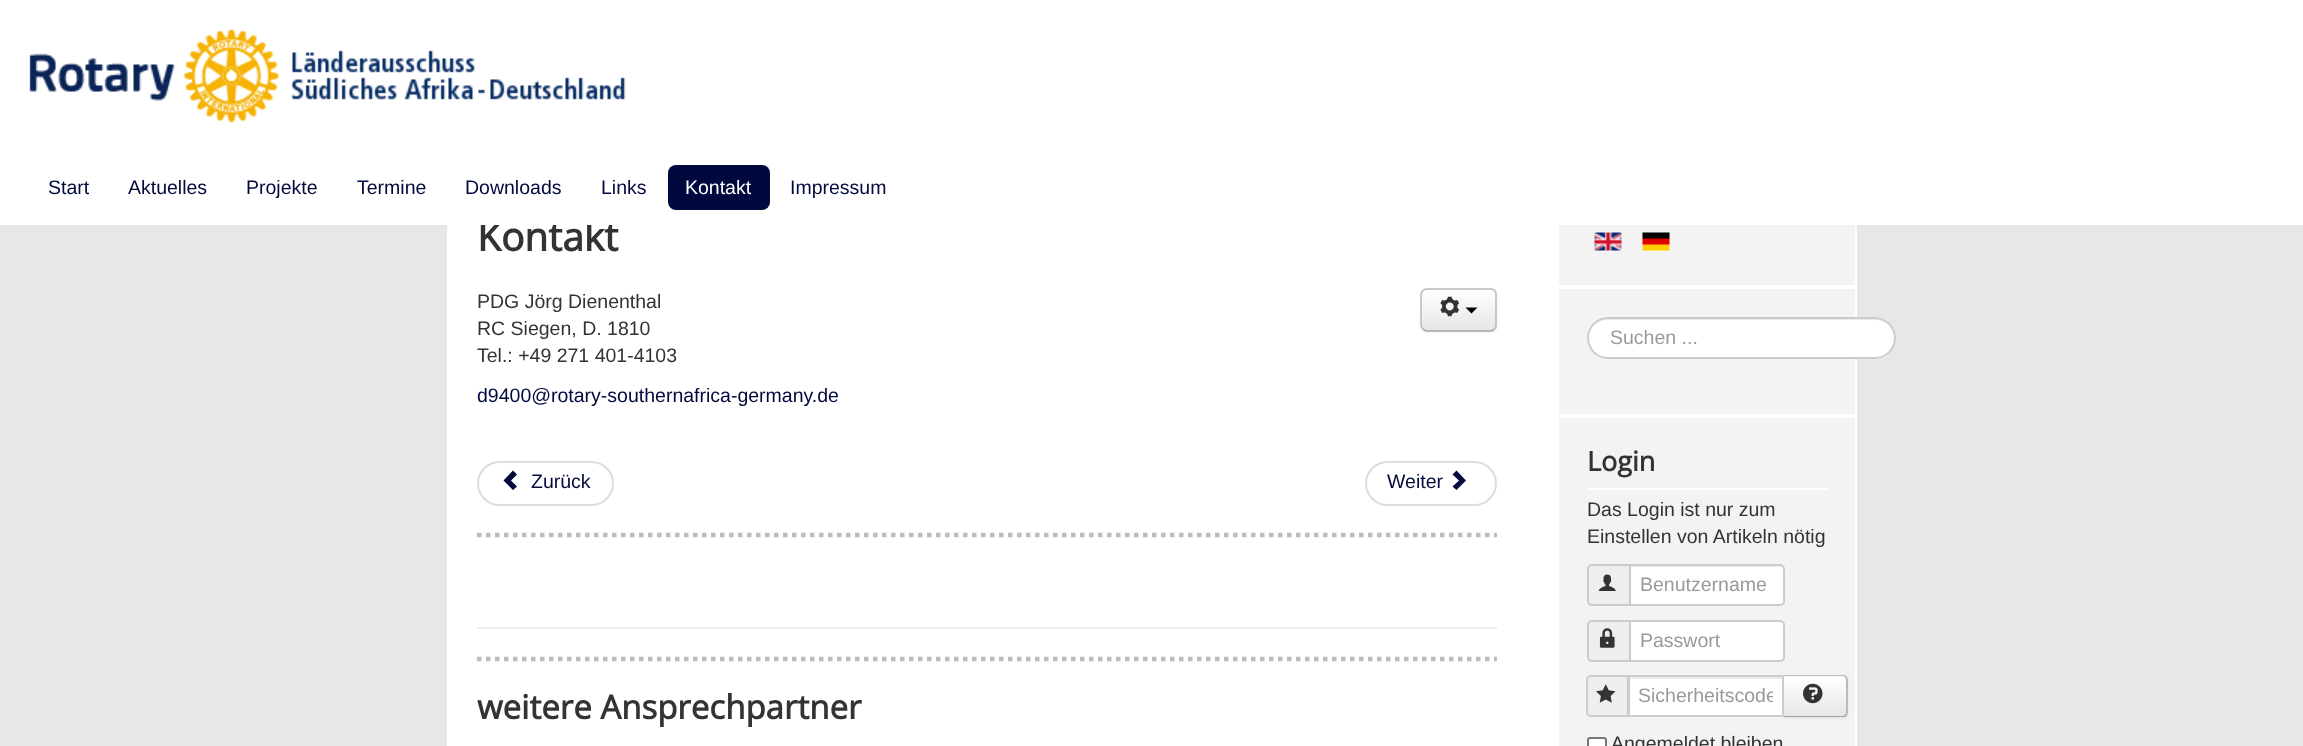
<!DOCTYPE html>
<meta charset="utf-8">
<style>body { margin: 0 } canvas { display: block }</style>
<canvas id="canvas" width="2303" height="746"></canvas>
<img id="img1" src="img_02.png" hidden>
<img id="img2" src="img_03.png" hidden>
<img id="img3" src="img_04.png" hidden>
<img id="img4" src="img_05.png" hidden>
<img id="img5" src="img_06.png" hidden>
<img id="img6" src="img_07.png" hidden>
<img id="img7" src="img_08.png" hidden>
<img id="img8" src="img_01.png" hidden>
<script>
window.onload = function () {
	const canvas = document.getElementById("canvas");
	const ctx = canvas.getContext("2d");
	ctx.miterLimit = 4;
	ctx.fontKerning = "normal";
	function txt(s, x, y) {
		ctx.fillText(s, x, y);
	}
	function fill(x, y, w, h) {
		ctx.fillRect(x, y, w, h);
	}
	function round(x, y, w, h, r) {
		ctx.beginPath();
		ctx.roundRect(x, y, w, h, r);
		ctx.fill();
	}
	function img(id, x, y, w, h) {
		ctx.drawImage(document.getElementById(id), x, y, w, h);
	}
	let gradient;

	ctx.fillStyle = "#E7E7E8";
	fill(0, 0, 2303, 746);
	ctx.fillStyle = "#FFFFFF";
	fill(447, 225, 1110, 521);
	ctx.fillStyle = "rgba(0, 0, 0, 0.05)";
	ctx.filter = "blur(1.5px)";
	ctx.beginPath();
	ctx.roundRect(1421, 290, 76, 43, 6);
	ctx.fill();
	ctx.filter = "none";
	ctx.fillStyle = "#F5F5F5";
	round(1421, 288, 76, 44, 6);
	ctx.save();
	ctx.beginPath();
	ctx.roundRect(1421, 288, 76, 44, 6);
	ctx.clip();
	gradient = ctx.createLinearGradient(1459, 290, 1459, 330);
	gradient.addColorStop(0, "#FFFFFF");
	gradient.addColorStop(1, "#E6E6E6");
	ctx.fillStyle = gradient;
	fill(1421, 290, 76, 40);
	ctx.restore();
	ctx.beginPath();
	ctx.moveTo(1494.5, 329);
	ctx.bezierCurveTo(1493.5, 330, 1492.5, 331, 1491, 331);
	ctx.lineTo(1426.5, 331);
	ctx.bezierCurveTo(1425, 331, 1424, 330, 1423, 329);
	ctx.strokeStyle = "#A2A2A2";
	ctx.lineWidth = 1.5;
	ctx.stroke();
	ctx.beginPath();
	ctx.moveTo(1423, 329);
	ctx.bezierCurveTo(1422, 328, 1421, 327, 1421, 325.5);
	ctx.lineTo(1421, 294);
	ctx.bezierCurveTo(1421, 292.5, 1422, 291.5, 1423, 290.5);
	ctx.bezierCurveTo(1424, 289.5, 1425, 289, 1426.5, 289);
	ctx.lineTo(1491, 289);
	ctx.bezierCurveTo(1492.5, 289, 1493.5, 289.5, 1494.5, 290.5);
	ctx.bezierCurveTo(1495.5, 291.5, 1496, 292.5, 1496, 294);
	ctx.lineTo(1496, 325.5);
	ctx.bezierCurveTo(1496, 327, 1495.5, 328, 1494.5, 329);
	ctx.strokeStyle = "#BBBBBB";
	ctx.stroke();
	img("img1", 1440, 296, 20, 21);
	ctx.fillStyle = "#000000";
	ctx.beginPath();
	ctx.moveTo(1465.5, 307.5);
	ctx.lineTo(1477.5, 307.5);
	ctx.lineTo(1471.5, 313.5);
	ctx.closePath();
	ctx.fill();
	ctx.beginPath();
	ctx.roundRect(478, 462, 135, 43, 21.5);
	ctx.strokeStyle = "#DDDDDD";
	ctx.lineWidth = 2;
	ctx.stroke();
	ctx.fillStyle = "#00093D";
	ctx.beginPath();
	ctx.moveTo(513, 490);
	ctx.lineTo(503.5, 480.5);
	ctx.lineTo(513, 470.5);
	ctx.lineTo(517, 474.5);
	ctx.lineTo(511, 480.5);
	ctx.lineTo(517, 486.5);
	ctx.closePath();
	ctx.fill();
	ctx.beginPath();
	ctx.roundRect(1366, 462, 130, 43, 21.5);
	ctx.stroke();
	ctx.beginPath();
	ctx.moveTo(1456.5, 470.5);
	ctx.lineTo(1466, 480.5);
	ctx.lineTo(1456.5, 490);
	ctx.lineTo(1452.5, 486.5);
	ctx.lineTo(1459, 480.5);
	ctx.lineTo(1452.5, 474.5);
	ctx.closePath();
	ctx.fill();
	ctx.beginPath();
	ctx.moveTo(477, 535);
	ctx.lineTo(1497, 535);
	ctx.strokeStyle = "#BDBDBD";
	ctx.lineWidth = 4.5;
	ctx.setLineDash([4.5, 4.5]);
	ctx.stroke();
	ctx.fillStyle = "#EEEEEE";
	fill(477, 627, 1020, 2);
	ctx.beginPath();
	ctx.moveTo(477, 659);
	ctx.lineTo(1497, 659);
	ctx.stroke();
	ctx.fillStyle = "#F3F3F3";
	fill(1559, 225, 296, 60);
	ctx.strokeStyle = "#FFFFFF";
	ctx.lineWidth = 2;
	ctx.setLineDash([]);
	ctx.strokeRect(1558, 198, 298, 88);
	img("img2", 1594, 232, 28, 19);
	img("img3", 1642, 232, 28, 19);
	ctx.beginPath();
	ctx.rect(1558, 288, 298, 127);
	ctx.fill();
	ctx.stroke();
	ctx.fillStyle = "#FFFFFF";
	round(1587, 317, 309, 42, 21);
	ctx.fillStyle = "#ECECEC";
	ctx.beginPath();
	ctx.moveTo(1608, 320);
	ctx.lineTo(1875, 320);
	ctx.bezierCurveTo(1886, 320, 1894, 328, 1894, 339);
	ctx.bezierCurveTo(1894, 342, 1893, 345, 1892, 348);
	ctx.bezierCurveTo(1894, 345, 1895, 341, 1895, 338);
	ctx.bezierCurveTo(1895, 327, 1886, 318, 1876, 318);
	ctx.lineTo(1608, 318);
	ctx.bezierCurveTo(1601, 318, 1594, 322, 1591, 328);
	ctx.bezierCurveTo(1595, 323, 1601, 320, 1608, 320);
	ctx.closePath();
	ctx.fill();
	ctx.beginPath();
	ctx.roundRect(1588, 318, 307, 40, 20);
	ctx.strokeStyle = "#CCCCCC";
	ctx.stroke();
	ctx.fillStyle = "#F3F3F3";
	ctx.beginPath();
	ctx.rect(1558, 417, 298, 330);
	ctx.fill();
	ctx.strokeStyle = "#FFFFFF";
	ctx.stroke();
	ctx.fillStyle = "#FFFFFF";
	fill(1587, 488, 240, 2);
	ctx.fillStyle = "#EEEEEE";
	ctx.beginPath();
	ctx.roundRect(1588, 565, 42, 40, [4, 0, 0, 4]);
	ctx.fill();
	ctx.strokeStyle = "#CCCCCC";
	ctx.stroke();
	img("img4", 1598, 574, 18, 17);
	ctx.fillStyle = "#FFFFFF";
	ctx.beginPath();
	ctx.roundRect(1629, 564, 156, 42, [0, 5, 5, 0]);
	ctx.fill();
	ctx.fillStyle = "#ECECEC";
	ctx.beginPath();
	ctx.moveTo(1631, 566);
	ctx.lineTo(1631, 567);
	ctx.lineTo(1780, 567);
	ctx.bezierCurveTo(1782, 567, 1784, 568, 1784, 570);
	ctx.bezierCurveTo(1784, 568, 1783, 566, 1781, 566);
	ctx.closePath();
	ctx.fill();
	ctx.beginPath();
	ctx.roundRect(1630, 565, 154, 40, [0, 4, 4, 0]);
	ctx.stroke();
	ctx.fillStyle = "#EEEEEE";
	ctx.beginPath();
	ctx.roundRect(1588, 621, 42, 40, [4, 0, 0, 4]);
	ctx.fill();
	ctx.stroke();
	img("img5", 1599, 628, 16, 20);
	ctx.fillStyle = "#FFFFFF";
	ctx.beginPath();
	ctx.roundRect(1630, 621, 154, 40, [0, 4, 4, 0]);
	ctx.fill();
	ctx.stroke();
	ctx.fillStyle = "#EEEEEE";
	ctx.beginPath();
	ctx.roundRect(1587, 676, 41, 40, [4, 0, 0, 4]);
	ctx.fill();
	ctx.stroke();
	img("img6", 1596, 684, 20, 19);
	ctx.fillStyle = "rgba(0, 0, 0, 0.05)";
	ctx.filter = "blur(1.5px)";
	ctx.beginPath();
	ctx.roundRect(1782, 677, 66, 42, 5);
	ctx.fill();
	ctx.filter = "none";
	ctx.fillStyle = "#FFFFFF";
	fill(1630, 679, 152, 36);
	ctx.fillStyle = "#ECECEC";
	fill(1629, 677, 153, 2);
	ctx.fillStyle = "#F5F5F5";
	ctx.beginPath();
	ctx.roundRect(1782, 675, 66, 42, [0, 5, 5, 0]);
	ctx.fill();
	ctx.save();
	ctx.beginPath();
	ctx.roundRect(1782, 675, 66, 42, [0, 5, 5, 0]);
	ctx.clip();
	gradient = ctx.createLinearGradient(1815, 677, 1815, 716);
	gradient.addColorStop(0, "#FFFFFF");
	gradient.addColorStop(1, "#E6E6E6");
	ctx.fillStyle = gradient;
	fill(1784, 677, 64, 39);
	ctx.restore();
	ctx.fillStyle = "rgba(255, 255, 255, 0.2)";
	ctx.beginPath();
	ctx.moveTo(1784, 678);
	ctx.lineTo(1824, 678);
	ctx.bezierCurveTo(1848, 678, 1846, 672, 1846, 692);
	ctx.lineTo(1846, 715);
	ctx.bezierCurveTo(1847, 715, 1847, 714, 1847, 713);
	ctx.lineTo(1847, 680);
	ctx.bezierCurveTo(1847, 678, 1846, 677, 1844, 677);
	ctx.lineTo(1784, 677);
	ctx.closePath();
	ctx.fill();
	ctx.fillStyle = "#BBBBBB";
	ctx.beginPath();
	ctx.moveTo(1782, 675);
	ctx.lineTo(1784, 677);
	ctx.lineTo(1784, 676);
	ctx.lineTo(1844, 676);
	ctx.lineTo(1845, 678);
	ctx.lineTo(1847, 676);
	ctx.lineTo(1844, 675);
	ctx.closePath();
	ctx.fill();
	ctx.beginPath();
	ctx.moveTo(1848, 712);
	ctx.lineTo(1848, 680);
	ctx.bezierCurveTo(1848, 678.5, 1847.5, 677, 1846.5, 676.5);
	ctx.lineTo(1845.5, 677.5);
	ctx.lineTo(1846, 680);
	ctx.lineTo(1846, 712);
	ctx.lineTo(1845.5, 714.5);
	ctx.lineTo(1846.5, 715.5);
	ctx.bezierCurveTo(1847.5, 715, 1848, 713.5, 1848, 712);
	ctx.closePath();
	ctx.fill();
	ctx.fillStyle = "#A2A2A2";
	ctx.beginPath();
	ctx.moveTo(1844, 717);
	ctx.lineTo(1847, 716);
	ctx.lineTo(1845, 714);
	ctx.lineTo(1844, 716);
	ctx.lineTo(1784, 716);
	ctx.lineTo(1784, 715);
	ctx.lineTo(1782, 717);
	ctx.closePath();
	ctx.fill();
	ctx.strokeRect(1629, 676, 154, 40);
	img("img7", 1803, 683, 20, 21);
	ctx.fillStyle = "#FFFFFF";
	ctx.beginPath();
	ctx.roundRect(1588, 738, 18, 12, 2);
	ctx.fill();
	ctx.strokeStyle = "#767676";
	ctx.stroke();
	ctx.font = "bold 39px Open Sans";
	ctx.fillStyle = "#333333";
	txt("Kontakt", 477, 251);
	ctx.fillStyle = "#FFFFFF";
	fill(0, 0, 2303, 225);
	ctx.font = "19.5px Liberation Sans";
	ctx.fillStyle = "#00093D";
	txt("Impressum", 790, 194);
	round(668, 165, 102, 45, 8);
	ctx.fillStyle = "#FFFFFF";
	txt("Kontakt", 685, 194);
	ctx.fillStyle = "#00093D";
	txt("Links", 601, 194);
	txt("Downloads", 465, 194);
	txt("Termine", 357, 194);
	txt("Projekte", 246, 194);
	txt("Aktuelles", 128, 194);
	txt("Start", 48, 194);
	img("img8", 29, 29, 597, 95);
	ctx.fillStyle = "#333333";
	txt("PDG Jörg Dienenthal", 477, 308);
	txt("RC Siegen, D. 1810", 477, 335);
	txt("Tel.: +49 271 401-4103", 477, 362);
	ctx.fillStyle = "#00093D";
	txt("d9400@rotary-southernafrica-germany.de", 477, 402);
	txt("Zurück", 531, 488);
	txt("Weiter", 1387, 488);
	ctx.font = "bold 33px Open Sans";
	ctx.fillStyle = "#333333";
	txt("weitere Ansprechpartner", 477, 719);
	ctx.font = "19.5px Liberation Sans";
	ctx.fillStyle = "#999999";
	txt("Suchen ...", 1610, 344);
	ctx.font = "bold 27px Open Sans";
	ctx.fillStyle = "#333333";
	txt("Login", 1587, 471);
	ctx.font = "19.5px Liberation Sans";
	txt("Das Login ist nur zum", 1587, 516);
	txt("Einstellen von Artikeln nötig", 1587, 543);
	ctx.fillStyle = "#999999";
	txt("Benutzername", 1640, 591);
	txt("Passwort", 1640, 647);
	ctx.save();
	ctx.beginPath();
	ctx.rect(1638, 684, 135, 23);
	ctx.clip();
	txt("Sicherheitscode", 1638, 702);
	ctx.restore();
	ctx.fillStyle = "#333333";
	txt("Angemeldet bleiben", 1611, 750);
};
</script>
